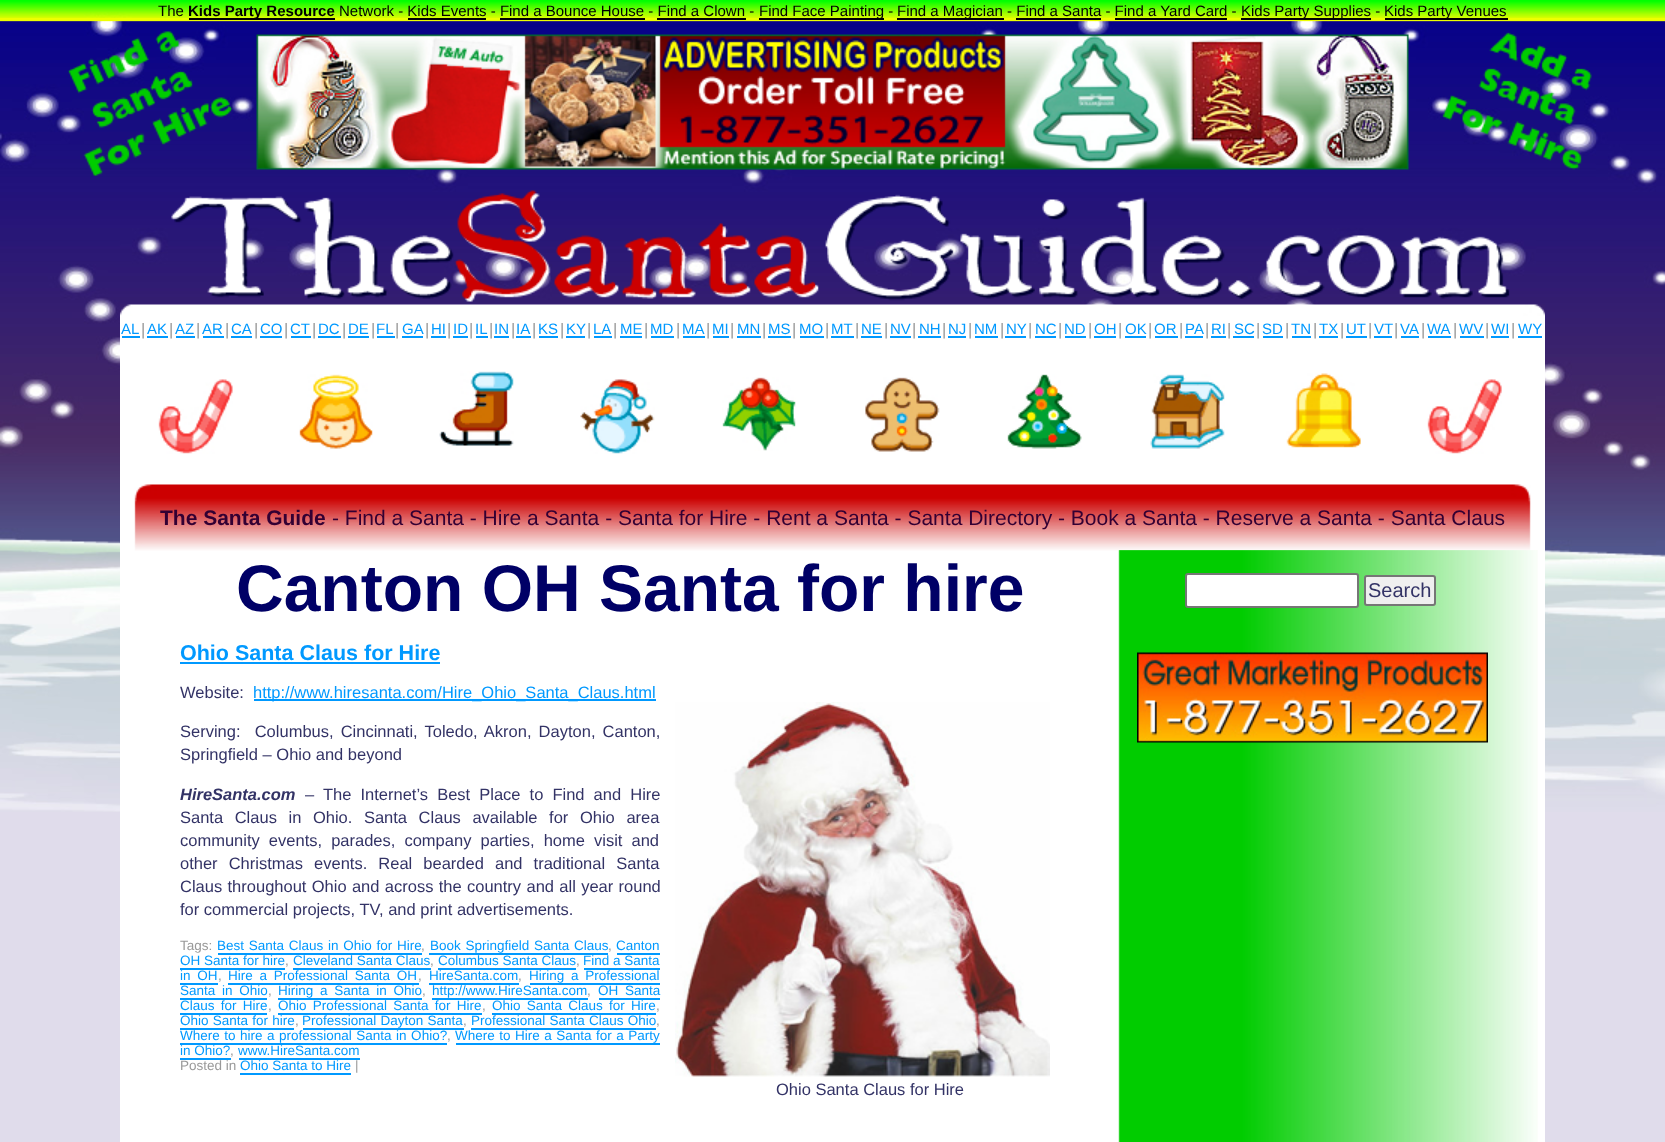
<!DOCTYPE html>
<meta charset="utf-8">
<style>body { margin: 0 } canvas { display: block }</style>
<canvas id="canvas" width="1665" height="1142"></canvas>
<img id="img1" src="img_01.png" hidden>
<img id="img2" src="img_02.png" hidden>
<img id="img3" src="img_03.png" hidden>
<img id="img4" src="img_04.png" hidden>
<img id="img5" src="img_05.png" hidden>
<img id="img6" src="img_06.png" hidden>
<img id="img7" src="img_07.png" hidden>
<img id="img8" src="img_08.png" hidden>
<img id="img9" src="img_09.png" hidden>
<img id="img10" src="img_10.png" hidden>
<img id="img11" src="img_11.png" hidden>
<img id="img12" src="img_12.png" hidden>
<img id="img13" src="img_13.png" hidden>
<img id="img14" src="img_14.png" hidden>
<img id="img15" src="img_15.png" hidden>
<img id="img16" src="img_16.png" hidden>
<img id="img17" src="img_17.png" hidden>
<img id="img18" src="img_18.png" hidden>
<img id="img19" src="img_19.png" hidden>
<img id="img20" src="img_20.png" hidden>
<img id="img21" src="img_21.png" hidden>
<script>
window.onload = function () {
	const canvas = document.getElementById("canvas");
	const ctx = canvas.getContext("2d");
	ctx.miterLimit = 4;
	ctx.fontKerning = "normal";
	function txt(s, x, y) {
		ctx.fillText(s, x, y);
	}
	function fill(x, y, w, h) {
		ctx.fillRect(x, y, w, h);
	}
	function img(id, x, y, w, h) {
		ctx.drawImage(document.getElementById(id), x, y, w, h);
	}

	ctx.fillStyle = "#E0DCEB";
	fill(0, 0, 1665, 1142);
	img("img1", 0, 0, 1665, 812);
	ctx.fillStyle = "#EDFF00";
	fill(0, 18, 1665, 3);
	ctx.fillStyle = "#000000";
	fill(189, 18, 146, 2);
	fill(759, 18, 125, 2);
	fill(897, 18, 107, 2);
	fill(1241, 18, 130, 2);
	fill(1385, 18, 123, 2);
	fill(408, 18, 78, 2);
	fill(500, 18, 145, 2);
	fill(657, 18, 89, 2);
	fill(1016, 18, 85, 2);
	fill(1115, 18, 112, 2);
	img("img2", 67, 31, 166, 145);
	img("img3", 256, 34, 1153, 136);
	img("img4", 1442, 32, 150, 138);
	img("img5", 171, 190, 1339, 112);
	ctx.fillStyle = "#FFFFFF";
	fill(120, 316, 1425, 826);
	img("img6", 120, 304, 1425, 12);
	ctx.fillStyle = "#0099FF";
	fill(122, 336, 18, 2);
	fill(147, 336, 21, 2);
	fill(176, 336, 19, 2);
	fill(203, 336, 21, 2);
	fill(231, 336, 21, 2);
	fill(260, 336, 22, 2);
	fill(291, 336, 20, 2);
	fill(318, 336, 23, 2);
	fill(348, 336, 21, 2);
	fill(377, 336, 18, 2);
	fill(402, 336, 21, 2);
	fill(431, 336, 15, 2);
	fill(453, 336, 15, 2);
	fill(476, 336, 12, 2);
	fill(494, 336, 15, 2);
	fill(516, 336, 15, 2);
	fill(539, 336, 19, 2);
	fill(566, 336, 19, 2);
	fill(594, 336, 18, 2);
	fill(620, 336, 22, 2);
	fill(651, 336, 23, 2);
	fill(683, 336, 22, 2);
	fill(713, 336, 16, 2);
	fill(737, 336, 24, 2);
	fill(768, 336, 23, 2);
	fill(800, 336, 24, 2);
	fill(831, 336, 23, 2);
	fill(861, 336, 21, 2);
	fill(890, 336, 21, 2);
	fill(918, 336, 23, 2);
	fill(948, 336, 18, 2);
	fill(975, 336, 23, 2);
	fill(1005, 336, 21, 2);
	fill(1035, 336, 21, 2);
	fill(1065, 336, 21, 2);
	fill(1094, 336, 22, 2);
	fill(1125, 336, 21, 2);
	fill(1155, 336, 23, 2);
	fill(1185, 336, 18, 2);
	fill(1211, 336, 15, 2);
	fill(1233, 336, 21, 2);
	fill(1263, 336, 20, 2);
	fill(1292, 336, 19, 2);
	fill(1319, 336, 19, 2);
	fill(1346, 336, 21, 2);
	fill(1374, 336, 18, 2);
	fill(1401, 336, 18, 2);
	fill(1428, 336, 23, 2);
	fill(1460, 336, 24, 2);
	fill(1491, 336, 18, 2);
	fill(1518, 336, 24, 2);
	img("img7", 158, 379, 75, 75);
	img("img8", 299, 374, 74, 75);
	img("img9", 439, 371, 75, 75);
	img("img10", 580, 379, 75, 75);
	img("img11", 722, 377, 74, 74);
	img("img12", 865, 377, 75, 75);
	img("img13", 1007, 374, 75, 75);
	img("img14", 1150, 374, 75, 75);
	img("img15", 1286, 373, 75, 75);
	img("img16", 1427, 379, 75, 75);
	img("img17", 134, 484, 1397, 67);
	img("img18", 1118, 550, 420, 1);
	img("img19", 1118, 550, 420, 592);
	fill(180, 662, 260, 2);
	fill(254, 699, 402, 2);
	img("img20", 675, 702, 375, 375);
	fill(218, 953, 204, 2);
	fill(429, 953, 179, 2);
	fill(617, 953, 43, 2);
	fill(180, 968, 105, 2);
	fill(293, 968, 138, 2);
	fill(438, 968, 138, 2);
	fill(584, 968, 76, 2);
	fill(180, 983, 38, 2);
	fill(228, 983, 191, 2);
	fill(429, 983, 90, 2);
	fill(530, 983, 130, 2);
	fill(180, 998, 87, 2);
	fill(278, 998, 144, 2);
	fill(432, 998, 156, 2);
	fill(599, 998, 61, 2);
	fill(180, 1013, 87, 2);
	fill(278, 1013, 204, 2);
	fill(492, 1013, 164, 2);
	fill(180, 1028, 114, 2);
	fill(303, 1028, 161, 2);
	fill(471, 1028, 185, 2);
	fill(180, 1043, 267, 2);
	fill(456, 1043, 204, 2);
	fill(180, 1058, 51, 2);
	fill(239, 1058, 121, 2);
	fill(240, 1073, 111, 2);
	ctx.fillStyle = "#FFFFFF";
	ctx.beginPath();
	ctx.roundRect(1186, 574, 172, 33, 2);
	ctx.fill();
	ctx.strokeStyle = "#767676";
	ctx.lineWidth = 2;
	ctx.stroke();
	ctx.fillStyle = "#EFEFEF";
	ctx.beginPath();
	ctx.roundRect(1365, 576, 70, 29, 2);
	ctx.fill();
	ctx.stroke();
	img("img21", 1137, 652, 351, 91);
	ctx.font = "15px Liberation Sans";
	ctx.fillStyle = "#000000";
	txt("The", 158, 16);
	ctx.font = "bold 15px Liberation Sans";
	txt("Kids Party Resource", 188, 16);
	ctx.font = "15px Liberation Sans";
	txt("Network - Kids Events - Find a Bounce House - Find a Clown -", 339, 16);
	txt("Find Face Painting -", 759, 16);
	txt("Find a Magician - Find a Santa - Find a Yard Card -", 897, 16);
	txt("Kids Party Supplies -", 1241, 16);
	txt("Kids Party Venues", 1384, 16);
	ctx.fillStyle = "#0099FF";
	txt("AL", 121, 334);
	ctx.font = "16.5px Liberation Sans";
	ctx.fillStyle = "#999999";
	txt("|", 141, 335);
	ctx.font = "15px Liberation Sans";
	ctx.fillStyle = "#0099FF";
	txt("AK", 147, 334);
	ctx.font = "16.5px Liberation Sans";
	ctx.fillStyle = "#999999";
	txt("|", 169, 335);
	ctx.font = "15px Liberation Sans";
	ctx.fillStyle = "#0099FF";
	txt("AZ", 175, 334);
	ctx.font = "16.5px Liberation Sans";
	ctx.fillStyle = "#999999";
	txt("|", 196, 335);
	ctx.font = "15px Liberation Sans";
	ctx.fillStyle = "#0099FF";
	txt("AR", 202, 334);
	ctx.font = "16.5px Liberation Sans";
	ctx.fillStyle = "#999999";
	txt("|", 225, 335);
	ctx.font = "15px Liberation Sans";
	ctx.fillStyle = "#0099FF";
	txt("CA", 231, 334);
	ctx.font = "16.5px Liberation Sans";
	ctx.fillStyle = "#999999";
	txt("|", 254, 335);
	ctx.font = "15px Liberation Sans";
	ctx.fillStyle = "#0099FF";
	txt("CO", 260, 334);
	ctx.font = "16.5px Liberation Sans";
	ctx.fillStyle = "#999999";
	txt("|", 284, 335);
	ctx.font = "15px Liberation Sans";
	ctx.fillStyle = "#0099FF";
	txt("CT", 290, 334);
	ctx.font = "16.5px Liberation Sans";
	ctx.fillStyle = "#999999";
	txt("|", 312, 335);
	ctx.font = "15px Liberation Sans";
	ctx.fillStyle = "#0099FF";
	txt("DC", 318, 334);
	ctx.font = "16.5px Liberation Sans";
	ctx.fillStyle = "#999999";
	txt("|", 342, 335);
	ctx.font = "15px Liberation Sans";
	ctx.fillStyle = "#0099FF";
	txt("DE", 348, 334);
	ctx.font = "16.5px Liberation Sans";
	ctx.fillStyle = "#999999";
	txt("|", 371, 335);
	ctx.font = "15px Liberation Sans";
	ctx.fillStyle = "#0099FF";
	txt("FL", 376, 334);
	ctx.font = "16.5px Liberation Sans";
	ctx.fillStyle = "#999999";
	txt("|", 395, 335);
	ctx.font = "15px Liberation Sans";
	ctx.fillStyle = "#0099FF";
	txt("GA", 402, 334);
	ctx.font = "16.5px Liberation Sans";
	ctx.fillStyle = "#999999";
	txt("|", 425, 335);
	ctx.font = "15px Liberation Sans";
	ctx.fillStyle = "#0099FF";
	txt("HI", 431, 334);
	ctx.font = "16.5px Liberation Sans";
	ctx.fillStyle = "#999999";
	txt("|", 447, 335);
	ctx.font = "15px Liberation Sans";
	ctx.fillStyle = "#0099FF";
	txt("ID", 453, 334);
	ctx.font = "16.5px Liberation Sans";
	ctx.fillStyle = "#999999";
	txt("|", 469, 335);
	ctx.font = "15px Liberation Sans";
	ctx.fillStyle = "#0099FF";
	txt("IL", 475, 334);
	ctx.font = "16.5px Liberation Sans";
	ctx.fillStyle = "#999999";
	txt("|", 489, 335);
	ctx.font = "15px Liberation Sans";
	ctx.fillStyle = "#0099FF";
	txt("IN", 494, 334);
	ctx.font = "16.5px Liberation Sans";
	ctx.fillStyle = "#999999";
	txt("|", 511, 335);
	ctx.font = "15px Liberation Sans";
	ctx.fillStyle = "#0099FF";
	txt("IA", 516, 334);
	ctx.font = "16.5px Liberation Sans";
	ctx.fillStyle = "#999999";
	txt("|", 532, 335);
	ctx.font = "15px Liberation Sans";
	ctx.fillStyle = "#0099FF";
	txt("KS", 538, 334);
	ctx.font = "16.5px Liberation Sans";
	ctx.fillStyle = "#999999";
	txt("|", 560, 335);
	ctx.font = "15px Liberation Sans";
	ctx.fillStyle = "#0099FF";
	txt("KY", 566, 334);
	ctx.font = "16.5px Liberation Sans";
	ctx.fillStyle = "#999999";
	txt("|", 587, 335);
	ctx.font = "15px Liberation Sans";
	ctx.fillStyle = "#0099FF";
	txt("LA", 593, 334);
	ctx.font = "16.5px Liberation Sans";
	ctx.fillStyle = "#999999";
	txt("|", 613, 335);
	ctx.font = "15px Liberation Sans";
	ctx.fillStyle = "#0099FF";
	txt("ME", 620, 334);
	ctx.font = "16.5px Liberation Sans";
	ctx.fillStyle = "#999999";
	txt("|", 644, 335);
	ctx.font = "15px Liberation Sans";
	ctx.fillStyle = "#0099FF";
	txt("MD", 650, 334);
	ctx.font = "16.5px Liberation Sans";
	ctx.fillStyle = "#999999";
	txt("|", 676, 335);
	ctx.font = "15px Liberation Sans";
	ctx.fillStyle = "#0099FF";
	txt("MA", 682, 334);
	ctx.font = "16.5px Liberation Sans";
	ctx.fillStyle = "#999999";
	txt("|", 706, 335);
	ctx.font = "15px Liberation Sans";
	ctx.fillStyle = "#0099FF";
	txt("MI", 712, 334);
	ctx.font = "16.5px Liberation Sans";
	ctx.fillStyle = "#999999";
	txt("|", 730, 335);
	ctx.font = "15px Liberation Sans";
	ctx.fillStyle = "#0099FF";
	txt("MN", 737, 334);
	ctx.font = "16.5px Liberation Sans";
	ctx.fillStyle = "#999999";
	txt("|", 762, 335);
	ctx.font = "15px Liberation Sans";
	ctx.fillStyle = "#0099FF";
	txt("MS", 768, 334);
	ctx.font = "16.5px Liberation Sans";
	ctx.fillStyle = "#999999";
	txt("|", 792, 335);
	ctx.font = "15px Liberation Sans";
	ctx.fillStyle = "#0099FF";
	txt("MO", 799, 334);
	ctx.font = "16.5px Liberation Sans";
	ctx.fillStyle = "#999999";
	txt("|", 825, 335);
	ctx.font = "15px Liberation Sans";
	ctx.fillStyle = "#0099FF";
	txt("MT", 831, 334);
	ctx.font = "16.5px Liberation Sans";
	ctx.fillStyle = "#999999";
	txt("|", 855, 335);
	ctx.font = "15px Liberation Sans";
	ctx.fillStyle = "#0099FF";
	txt("NE", 861, 334);
	ctx.font = "16.5px Liberation Sans";
	ctx.fillStyle = "#999999";
	txt("|", 884, 335);
	ctx.font = "15px Liberation Sans";
	ctx.fillStyle = "#0099FF";
	txt("NV", 890, 334);
	ctx.font = "16.5px Liberation Sans";
	ctx.fillStyle = "#999999";
	txt("|", 912, 335);
	ctx.font = "15px Liberation Sans";
	ctx.fillStyle = "#0099FF";
	txt("NH", 919, 334);
	ctx.font = "16.5px Liberation Sans";
	ctx.fillStyle = "#999999";
	txt("|", 942, 335);
	ctx.font = "15px Liberation Sans";
	ctx.fillStyle = "#0099FF";
	txt("NJ", 948, 334);
	ctx.font = "16.5px Liberation Sans";
	ctx.fillStyle = "#999999";
	txt("|", 968, 335);
	ctx.font = "15px Liberation Sans";
	ctx.fillStyle = "#0099FF";
	txt("NM", 974, 334);
	ctx.font = "16.5px Liberation Sans";
	ctx.fillStyle = "#999999";
	txt("|", 1000, 335);
	ctx.font = "15px Liberation Sans";
	ctx.fillStyle = "#0099FF";
	txt("NY", 1006, 334);
	ctx.font = "16.5px Liberation Sans";
	ctx.fillStyle = "#999999";
	txt("|", 1028, 335);
	ctx.font = "15px Liberation Sans";
	ctx.fillStyle = "#0099FF";
	txt("NC", 1035, 334);
	ctx.font = "16.5px Liberation Sans";
	ctx.fillStyle = "#999999";
	txt("|", 1058, 335);
	ctx.font = "15px Liberation Sans";
	ctx.fillStyle = "#0099FF";
	txt("ND", 1064, 334);
	ctx.font = "16.5px Liberation Sans";
	ctx.fillStyle = "#999999";
	txt("|", 1088, 335);
	ctx.font = "15px Liberation Sans";
	ctx.fillStyle = "#0099FF";
	txt("OH", 1094, 334);
	ctx.font = "16.5px Liberation Sans";
	ctx.fillStyle = "#999999";
	txt("|", 1118, 335);
	ctx.font = "15px Liberation Sans";
	ctx.fillStyle = "#0099FF";
	txt("OK", 1125, 334);
	ctx.font = "16.5px Liberation Sans";
	ctx.fillStyle = "#999999";
	txt("|", 1148, 335);
	ctx.font = "15px Liberation Sans";
	ctx.fillStyle = "#0099FF";
	txt("OR", 1154, 334);
	ctx.font = "16.5px Liberation Sans";
	ctx.fillStyle = "#999999";
	txt("|", 1179, 335);
	ctx.font = "15px Liberation Sans";
	ctx.fillStyle = "#0099FF";
	txt("PA", 1185, 334);
	ctx.font = "16.5px Liberation Sans";
	ctx.fillStyle = "#999999";
	txt("|", 1205, 335);
	ctx.font = "15px Liberation Sans";
	ctx.fillStyle = "#0099FF";
	txt("RI", 1211, 334);
	ctx.font = "16.5px Liberation Sans";
	ctx.fillStyle = "#999999";
	txt("|", 1227, 335);
	ctx.font = "15px Liberation Sans";
	ctx.fillStyle = "#0099FF";
	txt("SC", 1234, 334);
	ctx.font = "16.5px Liberation Sans";
	ctx.fillStyle = "#999999";
	txt("|", 1256, 335);
	ctx.font = "15px Liberation Sans";
	ctx.fillStyle = "#0099FF";
	txt("SD", 1262, 334);
	ctx.font = "16.5px Liberation Sans";
	ctx.fillStyle = "#999999";
	txt("|", 1285, 335);
	ctx.font = "15px Liberation Sans";
	ctx.fillStyle = "#0099FF";
	txt("TN", 1291, 334);
	ctx.font = "16.5px Liberation Sans";
	ctx.fillStyle = "#999999";
	txt("|", 1313, 335);
	ctx.font = "15px Liberation Sans";
	ctx.fillStyle = "#0099FF";
	txt("TX", 1319, 334);
	ctx.font = "16.5px Liberation Sans";
	ctx.fillStyle = "#999999";
	txt("|", 1340, 335);
	ctx.font = "15px Liberation Sans";
	ctx.fillStyle = "#0099FF";
	txt("UT", 1346, 334);
	ctx.font = "16.5px Liberation Sans";
	ctx.fillStyle = "#999999";
	txt("|", 1368, 335);
	ctx.font = "15px Liberation Sans";
	ctx.fillStyle = "#0099FF";
	txt("VT", 1374, 334);
	ctx.font = "16.5px Liberation Sans";
	ctx.fillStyle = "#999999";
	txt("|", 1394, 335);
	ctx.font = "15px Liberation Sans";
	ctx.fillStyle = "#0099FF";
	txt("VA", 1400, 334);
	ctx.font = "16.5px Liberation Sans";
	ctx.fillStyle = "#999999";
	txt("|", 1421, 335);
	ctx.font = "15px Liberation Sans";
	ctx.fillStyle = "#0099FF";
	txt("WA", 1427, 334);
	ctx.font = "16.5px Liberation Sans";
	ctx.fillStyle = "#999999";
	txt("|", 1453, 335);
	ctx.font = "15px Liberation Sans";
	ctx.fillStyle = "#0099FF";
	txt("WV", 1459, 334);
	ctx.font = "16.5px Liberation Sans";
	ctx.fillStyle = "#999999";
	txt("|", 1485, 335);
	ctx.font = "15px Liberation Sans";
	ctx.fillStyle = "#0099FF";
	txt("WI", 1491, 334);
	ctx.font = "16.5px Liberation Sans";
	ctx.fillStyle = "#999999";
	txt("|", 1511, 335);
	ctx.font = "15px Liberation Sans";
	ctx.fillStyle = "#0099FF";
	txt("WY", 1518, 334);
	ctx.font = "bold 21px Liberation Sans";
	ctx.fillStyle = "#330033";
	txt("The Santa Guide", 160, 525);
	ctx.font = "21px Liberation Sans";
	txt("- Find a Santa - Hire a Santa - Santa for Hire - Rent a Santa - Santa Directory - Book a Santa - Reserve a Santa - Santa Claus", 332, 525);
	ctx.font = "bold 66px Liberation Sans";
	ctx.fillStyle = "#000066";
	txt("Canton OH Santa for hire", 236, 611);
	ctx.font = "bold 21.5px Liberation Sans";
	ctx.fillStyle = "#0099FF";
	txt("Ohio Santa Claus for Hire", 180, 660);
	ctx.font = "16.5px Liberation Sans";
	ctx.fillStyle = "#333366";
	txt("Website:", 180, 698);
	ctx.fillStyle = "#0099FF";
	txt("http://www.hiresanta.com/Hire_Ohio_Santa_Claus.html", 253, 698);
	ctx.wordSpacing = "2.5px";
	ctx.fillStyle = "#333366";
	txt("Serving:  Columbus, Cincinnati, Toledo, Akron, Dayton, Canton,", 180, 737);
	ctx.wordSpacing = "0px";
	txt("Springfield – Ohio and beyond", 180, 760);
	ctx.font = "italic bold 16.5px Liberation Sans";
	txt("HireSanta.com", 180, 800);
	ctx.wordSpacing = "4.5px";
	ctx.font = "16.5px Liberation Sans";
	txt("– The Internet’s Best Place to Find and Hire", 305, 800);
	ctx.wordSpacing = "7px";
	txt("Santa Claus in Ohio. Santa Claus available for Ohio area", 180, 823);
	ctx.wordSpacing = "4.5px";
	txt("community events, parades, company parties, home visit and", 180, 846);
	ctx.wordSpacing = "6.5px";
	txt("other Christmas events. Real bearded and traditional Santa", 180, 869);
	ctx.wordSpacing = "0.75px";
	txt("Claus throughout Ohio and across the country and all year round", 180, 892);
	ctx.wordSpacing = "0px";
	txt("for commercial projects, TV, and print advertisements.", 180, 915);
	txt("Ohio Santa Claus for Hire", 776, 1095);
	ctx.font = "13.5px Liberation Sans";
	ctx.fillStyle = "#999999";
	txt("Tags:", 180, 950);
	ctx.wordSpacing = "1px";
	ctx.fillStyle = "#0099FF";
	txt("Best Santa Claus in Ohio for Hire", 217, 950);
	ctx.wordSpacing = "0px";
	ctx.fillStyle = "#999999";
	txt(",", 421, 950);
	ctx.wordSpacing = "1px";
	ctx.fillStyle = "#0099FF";
	txt("Book Springfield Santa Claus", 430, 950);
	ctx.wordSpacing = "0px";
	ctx.fillStyle = "#999999";
	txt(",", 608, 950);
	ctx.fillStyle = "#0099FF";
	txt("Canton", 616, 950);
	txt("OH Santa for hire", 180, 965);
	ctx.fillStyle = "#999999";
	txt(",", 285, 965);
	ctx.fillStyle = "#0099FF";
	txt("Cleveland Santa Claus", 293, 965);
	ctx.fillStyle = "#999999";
	txt(",", 430, 965);
	ctx.fillStyle = "#0099FF";
	txt("Columbus Santa Claus", 438, 965);
	ctx.fillStyle = "#999999";
	txt(",", 576, 965);
	ctx.fillStyle = "#0099FF";
	txt("Find a Santa", 583, 965);
	ctx.wordSpacing = "3px";
	txt("in OH", 180, 980);
	ctx.wordSpacing = "0px";
	ctx.fillStyle = "#999999";
	txt(",", 218, 980);
	ctx.wordSpacing = "3px";
	ctx.fillStyle = "#0099FF";
	txt("Hire a Professional Santa OH", 228, 980);
	ctx.wordSpacing = "0px";
	ctx.fillStyle = "#999999";
	txt(",", 418, 980);
	ctx.fillStyle = "#0099FF";
	txt("HireSanta.com", 429, 980);
	ctx.fillStyle = "#999999";
	txt(",", 518, 980);
	ctx.wordSpacing = "3px";
	ctx.fillStyle = "#0099FF";
	txt("Hiring a Professional", 529, 980);
	txt("Santa in Ohio", 180, 995);
	ctx.wordSpacing = "0px";
	ctx.fillStyle = "#999999";
	txt(",", 268, 995);
	ctx.wordSpacing = "3px";
	ctx.fillStyle = "#0099FF";
	txt("Hiring a Santa in Ohio", 278, 995);
	ctx.wordSpacing = "0px";
	ctx.fillStyle = "#999999";
	txt(",", 422, 995);
	ctx.fillStyle = "#0099FF";
	txt("http://www.HireSanta.com", 432, 995);
	ctx.fillStyle = "#999999";
	txt(",", 587, 995);
	ctx.wordSpacing = "3px";
	ctx.fillStyle = "#0099FF";
	txt("OH Santa", 598, 995);
	ctx.wordSpacing = "2.5px";
	txt("Claus for Hire", 180, 1010);
	ctx.wordSpacing = "0px";
	ctx.fillStyle = "#999999";
	txt(",", 268, 1010);
	ctx.wordSpacing = "2.5px";
	ctx.fillStyle = "#0099FF";
	txt("Ohio Professional Santa for Hire", 278, 1010);
	ctx.wordSpacing = "0px";
	ctx.fillStyle = "#999999";
	txt(",", 482, 1010);
	ctx.wordSpacing = "2.5px";
	ctx.fillStyle = "#0099FF";
	txt("Ohio Santa Claus for Hire", 492, 1010);
	ctx.wordSpacing = "0px";
	ctx.fillStyle = "#999999";
	txt(",", 656, 1010);
	ctx.wordSpacing = "0.5px";
	ctx.fillStyle = "#0099FF";
	txt("Ohio Santa for hire", 180, 1025);
	ctx.wordSpacing = "0px";
	ctx.fillStyle = "#999999";
	txt(",", 295, 1025);
	ctx.wordSpacing = "0.5px";
	ctx.fillStyle = "#0099FF";
	txt("Professional Dayton Santa", 302, 1025);
	ctx.wordSpacing = "0px";
	ctx.fillStyle = "#999999";
	txt(",", 463, 1025);
	ctx.wordSpacing = "0.5px";
	ctx.fillStyle = "#0099FF";
	txt("Professional Santa Claus Ohio", 471, 1025);
	ctx.wordSpacing = "0px";
	ctx.fillStyle = "#999999";
	txt(",", 656, 1025);
	ctx.wordSpacing = "0.75px";
	ctx.fillStyle = "#0099FF";
	txt("Where to hire a professional Santa in Ohio?", 180, 1040);
	ctx.wordSpacing = "0px";
	ctx.fillStyle = "#999999";
	txt(",", 447, 1040);
	ctx.wordSpacing = "0.75px";
	ctx.fillStyle = "#0099FF";
	txt("Where to Hire a Santa for a Party", 455, 1040);
	ctx.wordSpacing = "0px";
	txt("in Ohio?", 180, 1055);
	ctx.fillStyle = "#999999";
	txt(",", 230, 1055);
	ctx.fillStyle = "#0099FF";
	txt("www.HireSanta.com", 238, 1055);
	ctx.fillStyle = "#999999";
	txt("Posted in", 180, 1070);
	ctx.fillStyle = "#0099FF";
	txt("Ohio Santa to Hire", 240, 1070);
	ctx.fillStyle = "#999999";
	txt("|", 355, 1070);
	ctx.font = "20px Liberation Sans";
	ctx.fillStyle = "#333366";
	txt("Search", 1368, 597);
};
</script>
